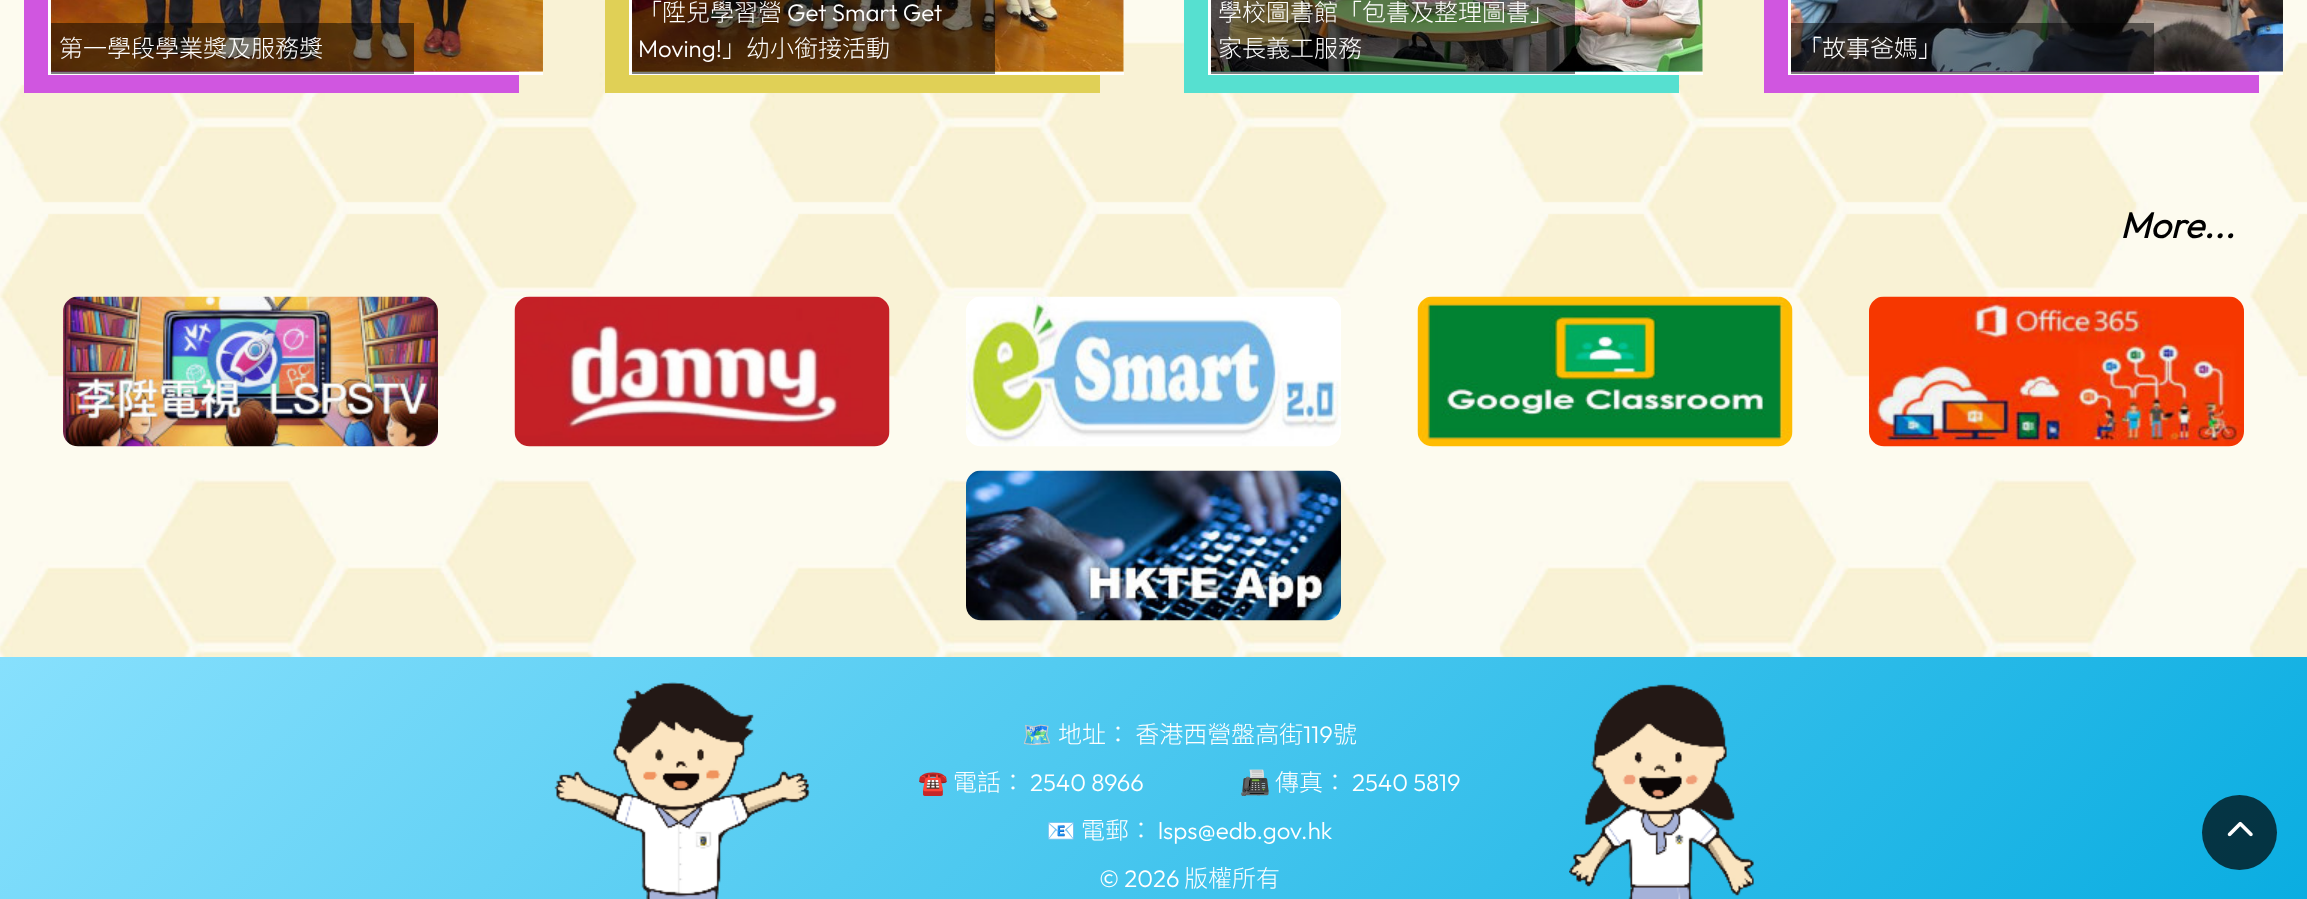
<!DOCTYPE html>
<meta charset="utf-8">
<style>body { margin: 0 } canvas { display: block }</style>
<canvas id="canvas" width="2307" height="899"></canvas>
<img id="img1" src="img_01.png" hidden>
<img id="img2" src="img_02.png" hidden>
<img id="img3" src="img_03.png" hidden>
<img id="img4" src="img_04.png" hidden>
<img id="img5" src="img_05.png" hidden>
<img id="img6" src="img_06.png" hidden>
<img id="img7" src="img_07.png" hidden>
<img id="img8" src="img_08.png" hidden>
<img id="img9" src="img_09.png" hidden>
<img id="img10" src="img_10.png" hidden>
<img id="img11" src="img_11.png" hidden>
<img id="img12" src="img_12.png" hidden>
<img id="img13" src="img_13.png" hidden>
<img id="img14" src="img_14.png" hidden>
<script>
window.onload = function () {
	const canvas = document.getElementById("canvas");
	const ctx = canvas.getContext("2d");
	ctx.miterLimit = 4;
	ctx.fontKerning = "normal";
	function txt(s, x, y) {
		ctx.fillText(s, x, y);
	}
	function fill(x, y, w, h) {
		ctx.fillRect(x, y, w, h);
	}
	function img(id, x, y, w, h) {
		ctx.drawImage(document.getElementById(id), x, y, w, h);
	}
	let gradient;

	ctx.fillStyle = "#FFFFFF";
	fill(0, 0, 2307, 899);
	img("img1", 0, 0, 2307, 657);
	ctx.fillStyle = "#D056E0";
	fill(24, 0, 495, 93);
	img("img2", 51, 0, 492, 72);
	ctx.fillStyle = "#FFFFFF";
	fill(48, 72, 495, 3);
	fill(48, 0, 3, 75);
	ctx.fillStyle = "rgba(0, 0, 0, 0.5)";
	fill(51, 23, 363, 51);
	ctx.fillStyle = "#E0D056";
	fill(605, 0, 495, 93);
	img("img3", 632, 0, 492, 72);
	ctx.fillStyle = "#FFFFFF";
	fill(629, 72, 495, 3);
	fill(629, 0, 3, 75);
	ctx.fillStyle = "rgba(0, 0, 0, 0.5)";
	fill(632, 0, 363, 74);
	ctx.fillStyle = "#56E0D0";
	fill(1184, 0, 495, 93);
	img("img4", 1211, 0, 492, 72);
	ctx.fillStyle = "#FFFFFF";
	fill(1208, 72, 495, 3);
	fill(1208, 0, 3, 75);
	ctx.fillStyle = "rgba(0, 0, 0, 0.5)";
	fill(1211, 0, 364, 74);
	ctx.fillStyle = "#D056E0";
	fill(1764, 0, 495, 93);
	img("img5", 1791, 0, 492, 72);
	ctx.fillStyle = "#FFFFFF";
	fill(1788, 72, 495, 3);
	fill(1788, 0, 3, 75);
	ctx.fillStyle = "rgba(0, 0, 0, 0.5)";
	fill(1791, 23, 363, 51);
	img("img6", 63, 296, 375, 151);
	img("img7", 514, 296, 376, 151);
	img("img8", 966, 296, 375, 151);
	img("img9", 1417, 296, 376, 151);
	img("img10", 1869, 296, 375, 151);
	img("img11", 966, 470, 375, 151);
	gradient = ctx.createLinearGradient(490, 167, 1817, 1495);
	gradient.addColorStop(0, "#87E0FD");
	gradient.addColorStop(0.4, "#53CBF1");
	gradient.addColorStop(1, "#05ABE0");
	ctx.fillStyle = gradient;
	fill(0, 657, 2307, 242);
	img("img12", 554, 682, 256, 217);
	img("img13", 1569, 684, 185, 215);
	ctx.fillStyle = "rgba(0, 0, 0, 0.7)";
	ctx.beginPath();
	ctx.arc(2239.5, 832.5, 37.5, 0, Math.PI * 2);
	ctx.fill();
	img("img14", 2227, 821, 26, 16);
	ctx.font = "100 24px Noto Sans HK";
	ctx.fillStyle = "#FFFFFF";
	txt("第一學段學業獎及服務獎", 59, 57);
	txt("「陞兒學習營", 638, 21);
	ctx.font = "100 24px Outfit";
	txt("Get Smart Get", 787, 21);
	txt("Moving!", 638, 57);
	ctx.font = "100 24px Noto Sans HK";
	txt("」幼小銜接活動", 722, 57);
	txt("學校圖書館「包書及整理圖書」", 1218, 21);
	txt("家長義工服務", 1218, 57);
	txt("「故事爸媽」", 1798, 57);
	ctx.font = "italic bold 36px Outfit";
	ctx.fillStyle = "#000000";
	txt("More...", 2120, 238);
	ctx.font = "24px Noto Color Emoji";
	ctx.fillStyle = "#FFFFFF";
	txt("🗺️", 1022, 743);
	ctx.font = "100 24px Noto Sans HK";
	txt("地址： 香港西營盤高街", 1058, 743);
	ctx.font = "100 24px Outfit";
	txt("119", 1303, 743);
	ctx.font = "100 24px Noto Sans HK";
	txt("號", 1333, 743);
	ctx.font = "24px Noto Color Emoji";
	txt("☎️", 918, 791);
	ctx.font = "100 24px Noto Sans HK";
	txt("電話：", 953, 791);
	ctx.font = "100 24px Outfit";
	txt("2540 8966", 1030, 791);
	ctx.font = "24px Noto Color Emoji";
	txt("📠", 1240, 791);
	ctx.font = "100 24px Noto Sans HK";
	txt("傳真：", 1275, 791);
	ctx.font = "100 24px Outfit";
	txt("2540 5819", 1352, 791);
	ctx.font = "24px Noto Color Emoji";
	txt("📧", 1046, 839);
	ctx.font = "100 24px Noto Sans HK";
	txt("電郵：", 1081, 839);
	ctx.font = "100 24px Outfit";
	txt("lsps@edb.gov.hk", 1158, 839);
	txt("© 2026", 1099, 887);
	ctx.font = "100 24px Noto Sans HK";
	txt("版權所有", 1184, 887);
};
</script>
